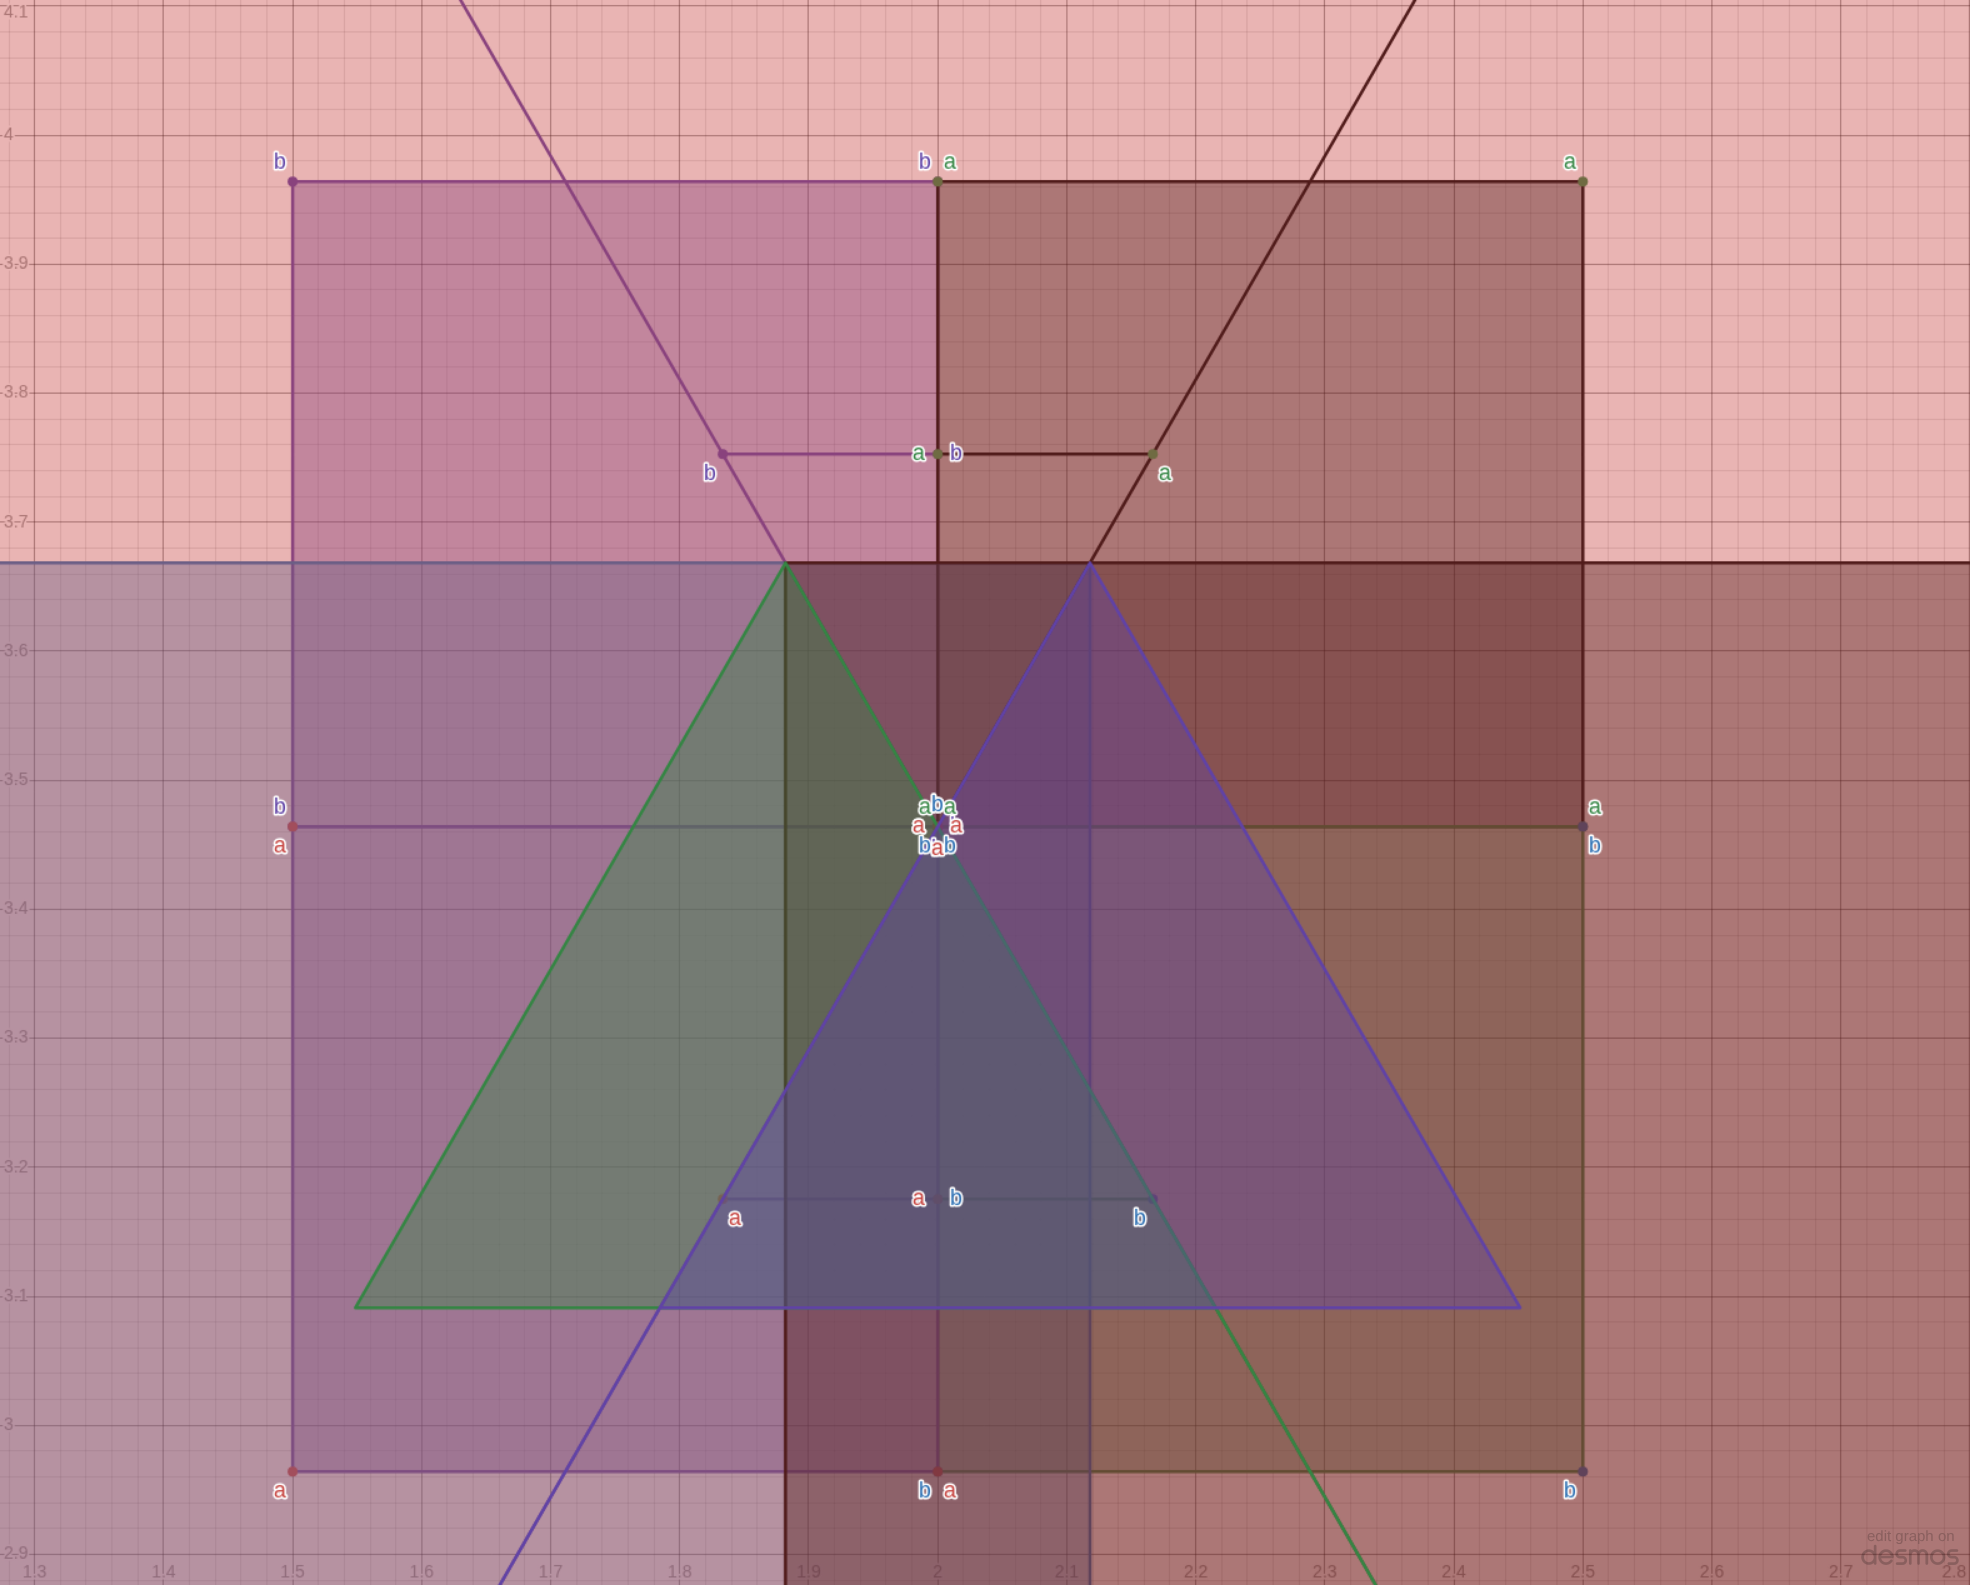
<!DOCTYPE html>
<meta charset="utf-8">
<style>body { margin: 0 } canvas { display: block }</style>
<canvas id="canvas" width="1970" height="1585"></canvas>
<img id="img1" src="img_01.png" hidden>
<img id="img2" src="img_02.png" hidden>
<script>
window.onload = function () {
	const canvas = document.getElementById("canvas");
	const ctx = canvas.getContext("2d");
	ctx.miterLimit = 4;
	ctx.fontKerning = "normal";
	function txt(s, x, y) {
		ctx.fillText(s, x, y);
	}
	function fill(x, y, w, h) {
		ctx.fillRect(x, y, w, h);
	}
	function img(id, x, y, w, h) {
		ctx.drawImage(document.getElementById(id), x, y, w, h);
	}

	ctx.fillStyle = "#FFFFFF";
	fill(0, 0, 1970, 1585);
	img("img1", 0, 0, 1970, 1585);
	ctx.font = "15px Liberation Sans";
	ctx.fillStyle = "#895F5E";
	txt("edit graph on", 1867, 1541);
	img("img2", 1861, 1544, 98, 21);
};
</script>
